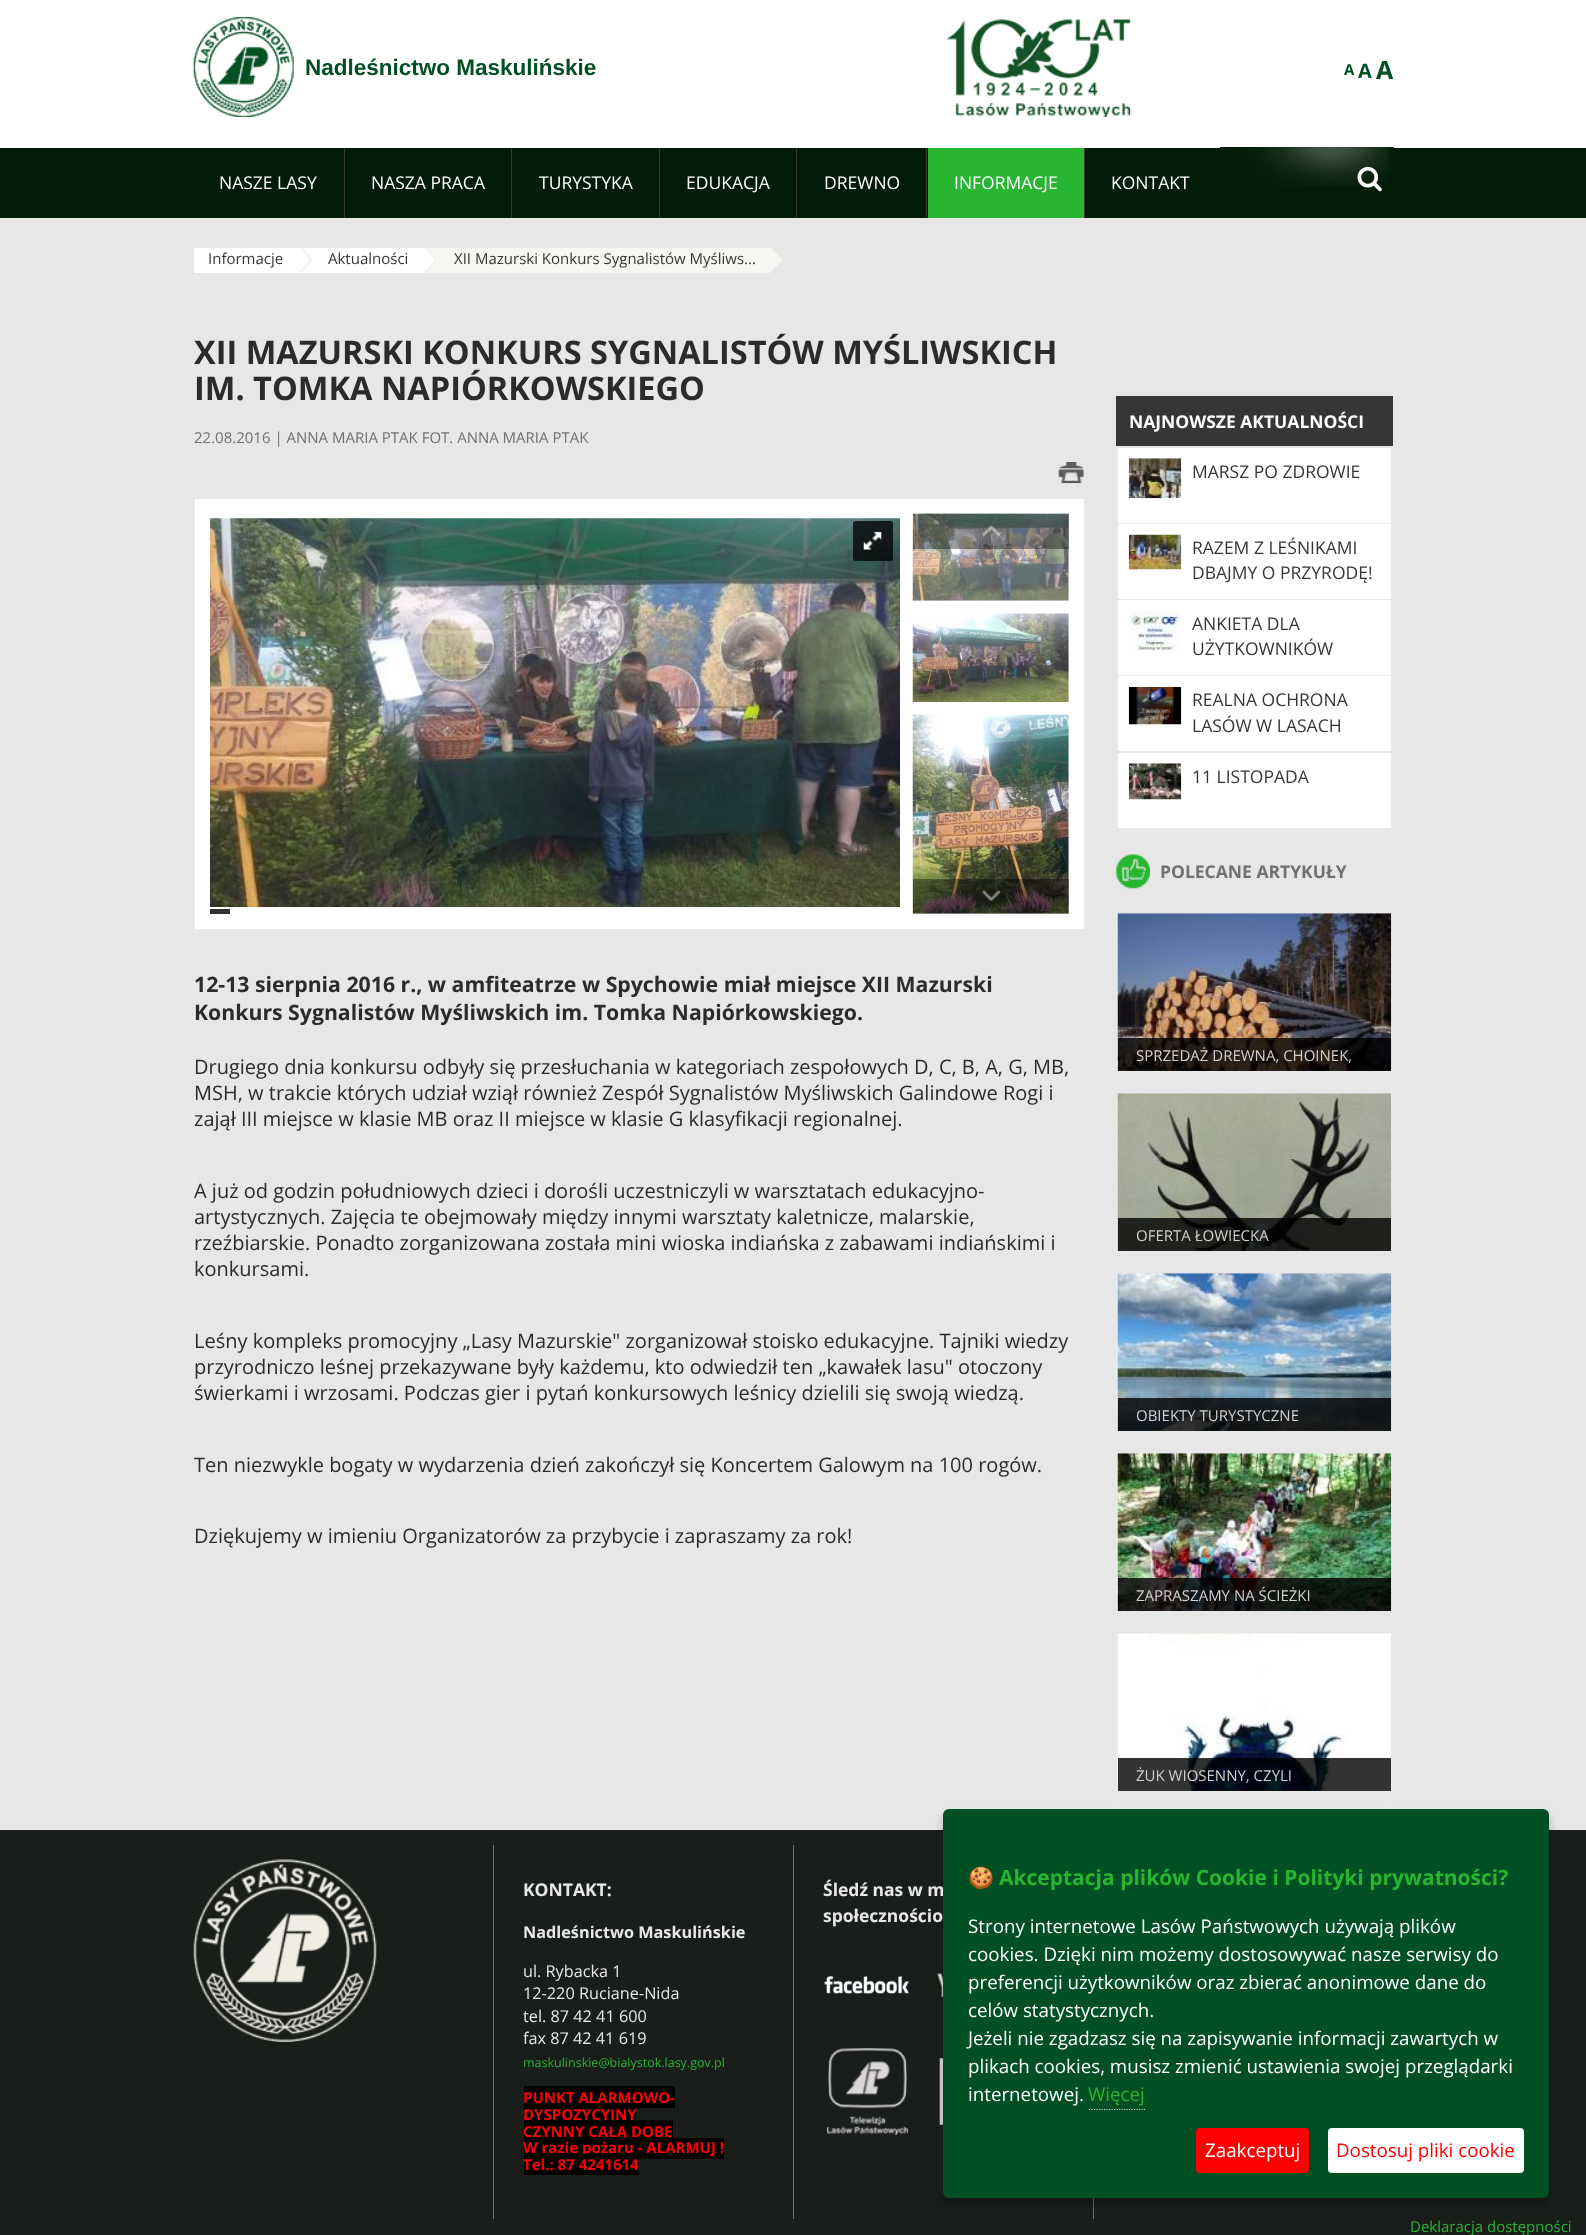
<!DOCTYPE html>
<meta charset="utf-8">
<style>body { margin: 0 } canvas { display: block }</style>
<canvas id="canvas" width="1586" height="2235"></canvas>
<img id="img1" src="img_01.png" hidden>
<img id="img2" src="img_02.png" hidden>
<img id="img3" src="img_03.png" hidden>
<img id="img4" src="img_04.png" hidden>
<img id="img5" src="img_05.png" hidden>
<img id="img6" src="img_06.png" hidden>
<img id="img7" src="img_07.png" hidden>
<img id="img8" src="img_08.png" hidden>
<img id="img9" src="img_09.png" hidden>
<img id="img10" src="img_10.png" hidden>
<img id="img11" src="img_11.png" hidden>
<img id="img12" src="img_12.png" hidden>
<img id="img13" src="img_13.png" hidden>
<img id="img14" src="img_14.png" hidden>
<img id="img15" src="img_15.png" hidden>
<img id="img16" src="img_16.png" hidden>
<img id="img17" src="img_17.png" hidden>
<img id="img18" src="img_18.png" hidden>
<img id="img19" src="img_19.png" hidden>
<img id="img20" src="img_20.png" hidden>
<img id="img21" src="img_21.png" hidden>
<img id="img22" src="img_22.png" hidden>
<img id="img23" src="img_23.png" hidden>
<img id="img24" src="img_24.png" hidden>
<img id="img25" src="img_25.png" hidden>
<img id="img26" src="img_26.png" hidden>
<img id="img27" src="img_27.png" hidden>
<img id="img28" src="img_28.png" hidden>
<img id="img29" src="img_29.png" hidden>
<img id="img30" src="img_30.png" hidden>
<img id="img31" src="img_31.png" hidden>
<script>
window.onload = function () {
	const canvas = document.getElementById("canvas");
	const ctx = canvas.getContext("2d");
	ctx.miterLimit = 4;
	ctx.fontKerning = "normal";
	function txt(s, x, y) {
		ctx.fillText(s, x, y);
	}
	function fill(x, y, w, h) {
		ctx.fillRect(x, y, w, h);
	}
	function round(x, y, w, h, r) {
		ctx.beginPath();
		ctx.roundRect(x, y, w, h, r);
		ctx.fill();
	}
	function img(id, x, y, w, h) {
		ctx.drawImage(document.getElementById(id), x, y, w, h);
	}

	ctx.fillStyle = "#FFFFFF";
	fill(0, 0, 1586, 2235);
	img("img1", 193, 17, 101, 100);
	img("img2", 946, 19, 185, 98);
	ctx.fillStyle = "#031C07";
	fill(0, 148, 1586, 70);
	img("img3", 1220, 147, 174, 39);
	ctx.fillStyle = "#363636";
	fill(344, 148, 1, 70);
	fill(511, 148, 1, 70);
	fill(659, 148, 1, 70);
	fill(796, 148, 1, 70);
	fill(926, 148, 1, 70);
	fill(1084, 148, 1, 70);
	ctx.fillStyle = "#28B532";
	fill(928, 148, 156, 70);
	img("img4", 1357, 166, 25, 26);
	ctx.fillStyle = "#E7E7E7";
	fill(0, 218, 1586, 1612);
	ctx.fillStyle = "#FFFFFF";
	fill(194, 248, 230, 25);
	img("img5", 298, 247, 14, 25);
	ctx.fillStyle = "#F8F6F2";
	fill(424, 248, 346, 25);
	img("img6", 423, 247, 14, 25);
	img("img7", 770, 247, 12, 25);
	ctx.fillStyle = "#EAEAEA";
	fill(1084, 310, 1, 1324);
	fill(194, 1633, 891, 1);
	fill(194, 310, 1, 1324);
	img("img8", 1058, 462, 26, 22);
	ctx.fillStyle = "#FFFFFF";
	fill(195, 499, 889, 430);
	img("img9", 210, 518, 690, 389);
	ctx.fillStyle = "rgba(0, 0, 0, 0.75)";
	round(853, 521, 40, 40, 2.5);
	img("img10", 863, 531, 19, 19);
	img("img11", 912, 513, 157, 88);
	img("img12", 912, 613, 157, 89);
	img("img13", 912, 714, 157, 200);
	ctx.fillStyle = "rgba(0, 0, 0, 0.38)";
	fill(913, 514, 156, 35);
	img("img14", 982, 525, 19, 11);
	fill(913, 879, 156, 35);
	img("img15", 982, 890, 19, 11);
	ctx.fillStyle = "#333333";
	fill(210, 909, 20, 5);
	ctx.fillStyle = "#363636";
	fill(1116, 396, 277, 50);
	ctx.fillStyle = "#EAEAEA";
	fill(1391, 446, 1, 383);
	fill(1116, 828, 277, 1);
	fill(1116, 446, 1, 383);
	ctx.fillStyle = "#FFFFFF";
	fill(1118, 448, 273, 75);
	img("img16", 1128, 458, 54, 41);
	fill(1118, 524, 273, 75);
	img("img17", 1128, 534, 54, 36);
	fill(1118, 600, 273, 75);
	img("img18", 1129, 611, 52, 40);
	fill(1118, 676, 273, 75);
	img("img19", 1128, 687, 54, 38);
	fill(1118, 753, 273, 75);
	img("img20", 1128, 763, 54, 37);
	img("img21", 1116, 854, 34, 35);
	ctx.fillStyle = "#EAEAEA";
	fill(1391, 914, 1, 901);
	fill(1116, 914, 1, 901);
	img("img22", 1117, 913, 275, 158);
	ctx.fillStyle = "rgba(0, 0, 0, 0.8)";
	fill(1118, 1038, 273, 33);
	img("img23", 1117, 1093, 275, 158);
	fill(1118, 1218, 273, 33);
	img("img24", 1117, 1273, 275, 158);
	fill(1118, 1398, 273, 33);
	img("img25", 1117, 1453, 275, 158);
	fill(1118, 1578, 273, 33);
	img("img26", 1117, 1633, 274, 158);
	fill(1118, 1758, 273, 33);
	ctx.fillStyle = "#1A1E1B";
	fill(0, 1830, 1586, 405);
	ctx.fillStyle = "#707070";
	fill(493, 1845, 1, 374);
	img("img27", 193, 1859, 184, 183);
	fill(793, 1845, 1, 374);
	ctx.fillStyle = "#000000";
	fill(524, 2086, 151, 22);
	fill(524, 2108, 112, 12);
	ctx.fillStyle = "#707070";
	fill(1093, 2198, 1, 21);
	img("img28", 824, 1976, 85, 18);
	img("img29", 937, 1973, 6, 25);
	img("img30", 827, 2048, 82, 87);
	img("img31", 939, 2058, 4, 67);
	ctx.fillStyle = "rgba(0, 0, 0, 0.25)";
	ctx.filter = "blur(4px)";
	ctx.beginPath();
	ctx.roundRect(943, 1816, 606, 389, 6);
	ctx.fill();
	ctx.filter = "none";
	ctx.font = "bold 22.5px Liberation Sans";
	ctx.fillStyle = "#005023";
	txt("Nadleśnictwo Maskulińskie", 305, 75);
	ctx.font = "bold 15px Open Sans";
	txt("A", 1344, 75);
	ctx.font = "bold 20px Open Sans";
	txt("A", 1358, 78);
	ctx.font = "bold 25px Open Sans";
	txt("A", 1376, 79);
	ctx.font = "17.5px Open Sans";
	ctx.fillStyle = "#FFFFFF";
	txt("NASZE LASY", 219, 189);
	txt("NASZA PRACA", 371, 189);
	txt("TURYSTYKA", 539, 189);
	txt("EDUKACJA", 686, 189);
	txt("DREWNO", 824, 189);
	txt("INFORMACJE", 954, 189);
	txt("KONTAKT", 1111, 189);
	ctx.font = "15px Open Sans";
	ctx.fillStyle = "#363636";
	txt("Informacje", 208, 264);
	txt("Aktualności", 328, 264);
	txt("XII Mazurski Konkurs Sygnalistów Myśliws...", 454, 264);
	ctx.font = "bold 32.5px Open Sans";
	ctx.fillStyle = "#2B2B2B";
	txt("XII MAZURSKI KONKURS SYGNALISTÓW MYŚLIWSKICH", 194, 364);
	txt("IM. TOMKA NAPIÓRKOWSKIEGO", 194, 400);
	ctx.font = "15px Open Sans";
	ctx.fillStyle = "#707070";
	txt("22.08.2016 | ANNA MARIA PTAK FOT. ANNA MARIA PTAK", 194, 443);
	ctx.font = "bold 21.25px Open Sans";
	ctx.fillStyle = "#2B2B2B";
	txt("12-13 sierpnia 2016 r., w amfiteatrze w Spychowie miał miejsce XII Mazurski", 194, 992);
	txt("Konkurs Sygnalistów Myśliwskich im. Tomka Napiórkowskiego.", 194, 1020);
	ctx.font = "20px Open Sans";
	txt("Drugiego dnia konkursu odbyły się przesłuchania w kategoriach zespołowych D, C, B, A, G, MB,", 194, 1074);
	txt("MSH, w trakcie których udział wziął również Zespół Sygnalistów Myśliwskich Galindowe Rogi i", 194, 1100);
	txt("zajął III miejsce w klasie MB oraz II miejsce w klasie G klasyfikacji regionalnej.", 194, 1126);
	txt("A już od godzin południowych dzieci i dorośli uczestniczyli w warsztatach edukacyjno-", 194, 1198);
	txt("artystycznych. Zajęcia te obejmowały między innymi warsztaty kaletnicze, malarskie,", 194, 1224);
	txt("rzeźbiarskie. Ponadto zorganizowana została mini wioska indiańska z zabawami indiańskimi i", 194, 1250);
	txt("konkursami.", 194, 1276);
	txt("Leśny kompleks promocyjny „Lasy Mazurskie\" zorganizował stoisko edukacyjne. Tajniki wiedzy", 194, 1348);
	txt("przyrodniczo leśnej przekazywane były każdemu, kto odwiedził ten „kawałek lasu\" otoczony", 194, 1374);
	txt("świerkami i wrzosami. Podczas gier i pytań konkursowych leśnicy dzielili się swoją wiedzą.", 194, 1400);
	txt("Ten niezwykle bogaty w wydarzenia dzień zakończył się Koncertem Galowym na 100 rogów.", 194, 1472);
	txt("Dziękujemy w imieniu Organizatorów za przybycie i zapraszamy za rok!", 194, 1543);
	ctx.font = "bold 17.5px Open Sans";
	ctx.fillStyle = "#FFFFFF";
	txt("NAJNOWSZE AKTUALNOŚCI", 1129, 428);
	ctx.font = "17.5px Open Sans";
	ctx.fillStyle = "#363636";
	txt("MARSZ PO ZDROWIE", 1192, 478);
	txt("RAZEM Z LEŚNIKAMI", 1192, 554);
	txt("DBAJMY O PRZYRODĘ!", 1192, 579);
	txt("ANKIETA DLA", 1192, 630);
	txt("UŻYTKOWNIKÓW", 1192, 655);
	txt("REALNA OCHRONA", 1192, 706);
	txt("LASÓW W LASACH", 1192, 732);
	txt("11 LISTOPADA", 1192, 783);
	ctx.font = "bold 17.5px Open Sans";
	ctx.fillStyle = "#707070";
	txt("POLECANE ARTYKUŁY", 1160, 878);
	ctx.font = "15px Open Sans";
	ctx.fillStyle = "#D2D0CF";
	txt("SPRZEDAŻ DREWNA, CHOINEK,", 1136, 1061);
	txt("OFERTA ŁOWIECKA", 1136, 1241);
	txt("OBIEKTY TURYSTYCZNE", 1136, 1421);
	txt("ZAPRASZAMY NA ŚCIEŻKI", 1136, 1601);
	txt("ŻUK WIOSENNY, CZYLI", 1136, 1781);
	ctx.font = "bold 17.5px Open Sans";
	ctx.fillStyle = "#E7E7E7";
	txt("KONTAKT:", 523, 1896);
	ctx.font = "bold 16.25px Open Sans";
	txt("Nadleśnictwo Maskulińskie", 523, 1938);
	ctx.font = "16.25px Open Sans";
	txt("ul. Rybacka 1", 523, 1977);
	txt("12-220 Ruciane-Nida", 523, 1999);
	txt("tel. 87 42 41 600", 523, 2022);
	txt("fax 87 42 41 619", 523, 2044);
	ctx.font = "12.5px Open Sans";
	ctx.fillStyle = "#28B532";
	txt("maskulinskie@bialystok.lasy.gov.pl", 523, 2067);
	ctx.font = "bold 15px Open Sans";
	ctx.fillStyle = "#FF0000";
	txt("PUNKT ALARMOWO-", 523, 2103);
	txt("DYSPOZYCYJNY", 523, 2120);
	ctx.fillStyle = "#000000";
	fill(524, 2120, 149, 18);
	ctx.fillStyle = "#FF0000";
	txt("CZYNNY CAŁĄ DOBĘ", 523, 2137);
	ctx.fillStyle = "#000000";
	fill(524, 2138, 200, 21);
	ctx.fillStyle = "#FF0000";
	txt("W razie pożaru - ALARMUJ !", 523, 2153);
	ctx.fillStyle = "#000000";
	fill(524, 2154, 115, 21);
	ctx.fillStyle = "#FF0000";
	txt("Tel.: 87 4241614", 523, 2170);
	ctx.font = "bold 17.5px Open Sans";
	ctx.fillStyle = "#E7E7E7";
	txt("Śledź nas w m", 823, 1896);
	txt("społecznościo", 823, 1922);
	ctx.font = "15px Open Sans";
	ctx.fillStyle = "#28B532";
	txt("Deklaracja dostępności", 1410, 2232);
	ctx.fillStyle = "#005023";
	round(943, 1809, 606, 389, 6);
	ctx.font = "bold 21px Noto Color Emoji";
	ctx.fillStyle = "#28B532";
	txt("🍪", 968, 1885);
	ctx.font = "bold 21px Open Sans";
	txt("Akceptacja plików Cookie i Polityki prywatności?", 999, 1885);
	ctx.font = "18.75px Open Sans";
	ctx.fillStyle = "#FFFFFF";
	txt("Strony internetowe Lasów Państwowych używają plików", 968, 1933);
	txt("cookies. Dzięki nim możemy dostosowywać nasze serwisy do", 968, 1961);
	txt("preferencji użytkowników oraz zbierać anonimowe dane do", 968, 1989);
	txt("celów statystycznych.", 968, 2017);
	txt("Jeżeli nie zgadzasz się na zapisywanie informacji zawartych w", 968, 2045);
	txt("plikach cookies, musisz zmienić ustawienia swojej przeglądarki", 968, 2073);
	txt("internetowej.", 968, 2101);
	ctx.fillStyle = "#28B532";
	txt("Więcej", 1088, 2101);
	ctx.beginPath();
	ctx.moveTo(1089, 2109.5);
	ctx.lineTo(1145, 2109.5);
	ctx.strokeStyle = "#BFD3C8";
	ctx.lineWidth = 1.2;
	ctx.setLineDash([1.25, 1.25]);
	ctx.stroke();
	ctx.fillStyle = "#FF0000";
	round(1196, 2128, 113, 45, 4);
	ctx.fillStyle = "#FFFFFF";
	txt("Zaakceptuj", 1205, 2157);
	round(1328, 2128, 196, 45, 4);
	ctx.fillStyle = "#FF0000";
	txt("Dostosuj pliki cookie", 1336, 2157);
};
</script>
